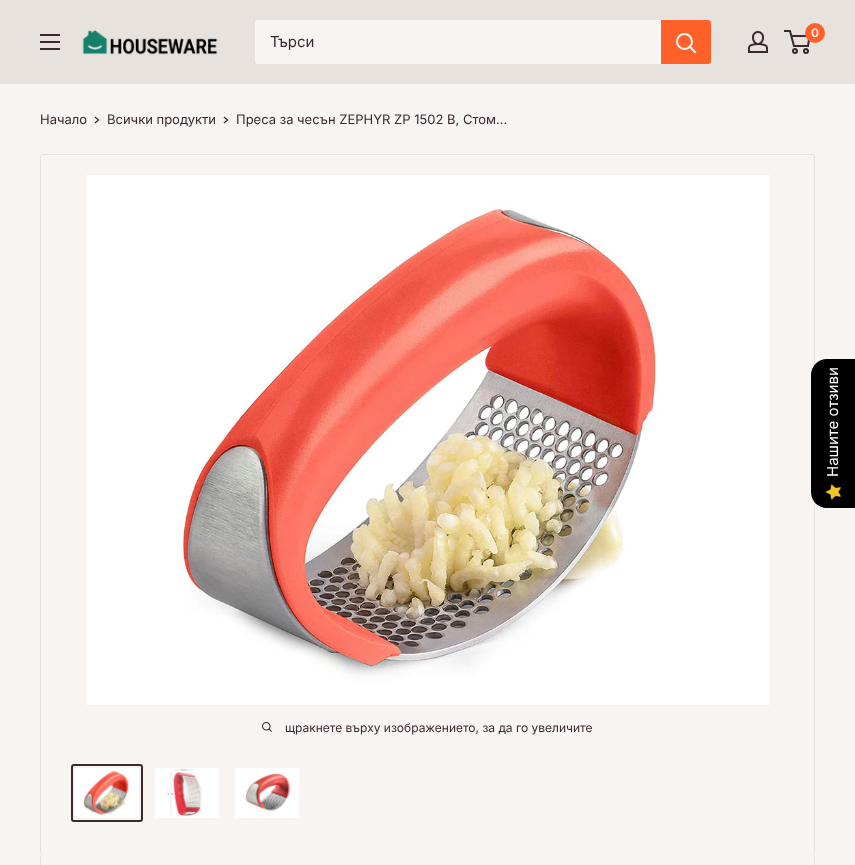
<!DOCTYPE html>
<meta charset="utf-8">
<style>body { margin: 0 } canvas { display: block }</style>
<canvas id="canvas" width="855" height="865"></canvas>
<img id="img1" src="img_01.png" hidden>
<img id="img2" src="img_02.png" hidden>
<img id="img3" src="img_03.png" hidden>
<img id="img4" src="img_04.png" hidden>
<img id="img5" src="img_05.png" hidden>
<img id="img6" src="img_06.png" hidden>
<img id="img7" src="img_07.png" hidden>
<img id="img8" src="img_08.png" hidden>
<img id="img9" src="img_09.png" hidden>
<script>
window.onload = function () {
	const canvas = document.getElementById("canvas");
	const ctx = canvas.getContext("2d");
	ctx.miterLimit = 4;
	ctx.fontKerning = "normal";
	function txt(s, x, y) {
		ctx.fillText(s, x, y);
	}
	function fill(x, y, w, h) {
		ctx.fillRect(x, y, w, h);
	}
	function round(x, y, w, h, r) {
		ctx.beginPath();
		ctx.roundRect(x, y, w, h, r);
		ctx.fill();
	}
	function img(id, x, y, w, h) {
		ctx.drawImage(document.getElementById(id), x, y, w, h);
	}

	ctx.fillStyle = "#F7F4F2";
	fill(0, 0, 855, 865);
	ctx.fillStyle = "#E7E2DE";
	fill(0, 0, 855, 84);
	img("img1", 40, 34, 20, 16);
	img("img2", 82, 30, 136, 25);
	ctx.fillStyle = "#F7F4F2";
	round(255, 20, 456, 44, 3);
	ctx.fillStyle = "#FF6128";
	ctx.beginPath();
	ctx.roundRect(661, 20, 50, 44, [0, 3, 3, 0]);
	ctx.fill();
	ctx.beginPath();
	ctx.moveTo(695, 52);
	ctx.lineTo(690, 47);
	ctx.strokeStyle = "#F7F4F2";
	ctx.lineWidth = 2;
	ctx.lineCap = "square";
	ctx.stroke();
	ctx.beginPath();
	ctx.arc(684.5, 41.5, 7.5, 0, Math.PI * 2);
	ctx.stroke();
	img("img3", 748, 31, 20, 22);
	ctx.beginPath();
	ctx.arc(795, 51, 2, 0, Math.PI * 2);
	ctx.strokeStyle = "#3A2A2F";
	ctx.stroke();
	ctx.beginPath();
	ctx.arc(806, 51, 2, 0, Math.PI * 2);
	ctx.stroke();
	ctx.beginPath();
	ctx.moveTo(791.5, 36);
	ctx.lineTo(809.5, 36);
	ctx.lineTo(808, 46);
	ctx.lineTo(794, 46);
	ctx.lineTo(790, 31);
	ctx.lineTo(784, 31);
	ctx.lineCap = "butt";
	ctx.stroke();
	ctx.beginPath();
	ctx.arc(815, 33, 10, 0, Math.PI * 2);
	ctx.fill();
	ctx.beginPath();
	ctx.moveTo(95.5, 117.5);
	ctx.lineTo(98.5, 120);
	ctx.lineTo(95.5, 122.5);
	ctx.lineWidth = 1.3;
	ctx.lineCap = "square";
	ctx.stroke();
	ctx.beginPath();
	ctx.moveTo(224.5, 117.5);
	ctx.lineTo(227.5, 120);
	ctx.lineTo(224.5, 122.5);
	ctx.stroke();
	ctx.beginPath();
	ctx.roundRect(40.5, 154.5, 774, 700, 2.5);
	ctx.strokeStyle = "#E7E2DE";
	ctx.lineWidth = 1;
	ctx.stroke();
	img("img4", 86, 175, 684, 530);
	img("img5", 262, 722, 10, 10);
	ctx.beginPath();
	ctx.roundRect(72, 765, 70, 56, 2);
	ctx.strokeStyle = "#3A2A2F";
	ctx.lineWidth = 2;
	ctx.stroke();
	img("img6", 75, 768, 64, 50);
	img("img7", 155, 768, 64, 50);
	img("img8", 235, 768, 64, 50);
	ctx.fillStyle = "#F7F4F2";
	ctx.beginPath();
	ctx.moveTo(43, 854);
	ctx.bezierCurveTo(41, 854, 40, 856, 40, 858);
	ctx.bezierCurveTo(40, 856, 41, 855, 43, 855);
	ctx.lineTo(812, 855);
	ctx.bezierCurveTo(814, 855, 815, 856, 815, 858);
	ctx.bezierCurveTo(815, 856, 814, 854, 812, 854);
	ctx.closePath();
	ctx.fill();
	ctx.fillStyle = "#E7E2DE";
	ctx.beginPath();
	ctx.moveTo(43, 855);
	ctx.lineTo(812, 855);
	ctx.bezierCurveTo(814, 855, 815, 856, 815, 858);
	ctx.lineTo(815, 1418);
	ctx.bezierCurveTo(815, 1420, 814, 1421, 812, 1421);
	ctx.lineTo(43, 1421);
	ctx.bezierCurveTo(41, 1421, 40, 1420, 40, 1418);
	ctx.lineTo(40, 858);
	ctx.bezierCurveTo(40, 856, 41, 855, 43, 855);
	ctx.closePath();
	ctx.moveTo(43, 855);
	ctx.lineTo(812, 855);
	ctx.bezierCurveTo(813, 855, 814, 856, 814, 858);
	ctx.lineTo(814, 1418);
	ctx.bezierCurveTo(814, 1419, 813, 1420, 812, 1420);
	ctx.lineTo(43, 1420);
	ctx.bezierCurveTo(42, 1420, 41, 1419, 41, 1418);
	ctx.lineTo(41, 858);
	ctx.bezierCurveTo(41, 856, 42, 855, 43, 855);
	ctx.closePath();
	ctx.fill("evenodd");
	ctx.fillStyle = "#000000";
	ctx.beginPath();
	ctx.moveTo(811, 492);
	ctx.lineTo(811, 375);
	ctx.bezierCurveTo(811, 366, 818, 359, 827, 359);
	ctx.lineTo(855, 359);
	ctx.lineTo(855, 508);
	ctx.lineTo(827, 508);
	ctx.bezierCurveTo(818, 508, 811, 501, 811, 492);
	ctx.closePath();
	ctx.fill();
	img("img9", 825, 484, 16, 16);
	ctx.font = "15px Inter";
	ctx.fillStyle = "#3A2A2F";
	txt("Търси", 270, 47);
	ctx.font = "600 12px Inter";
	ctx.fillStyle = "#F7F4F2";
	txt("0", 811, 37);
	ctx.font = "13px Inter";
	ctx.fillStyle = "#3A2A2F";
	txt("Начало", 40, 124);
	txt("Всички продукти", 107, 124);
	txt("Преса за чесън ZEPHYR ZP 1502 B, Стом...", 236, 124);
	ctx.font = "12px Inter";
	txt("щракнете върху изображението, за да го увеличите", 285, 732);
	ctx.font = "15px Inter";
	ctx.fillStyle = "#FFFFFF";
	ctx.save();
	ctx.translate(838, 477);
	ctx.rotate(-90 * Math.PI / 180);
	ctx.fillText("Нашите отзиви", 0, 0);
	ctx.restore();
};
</script>
